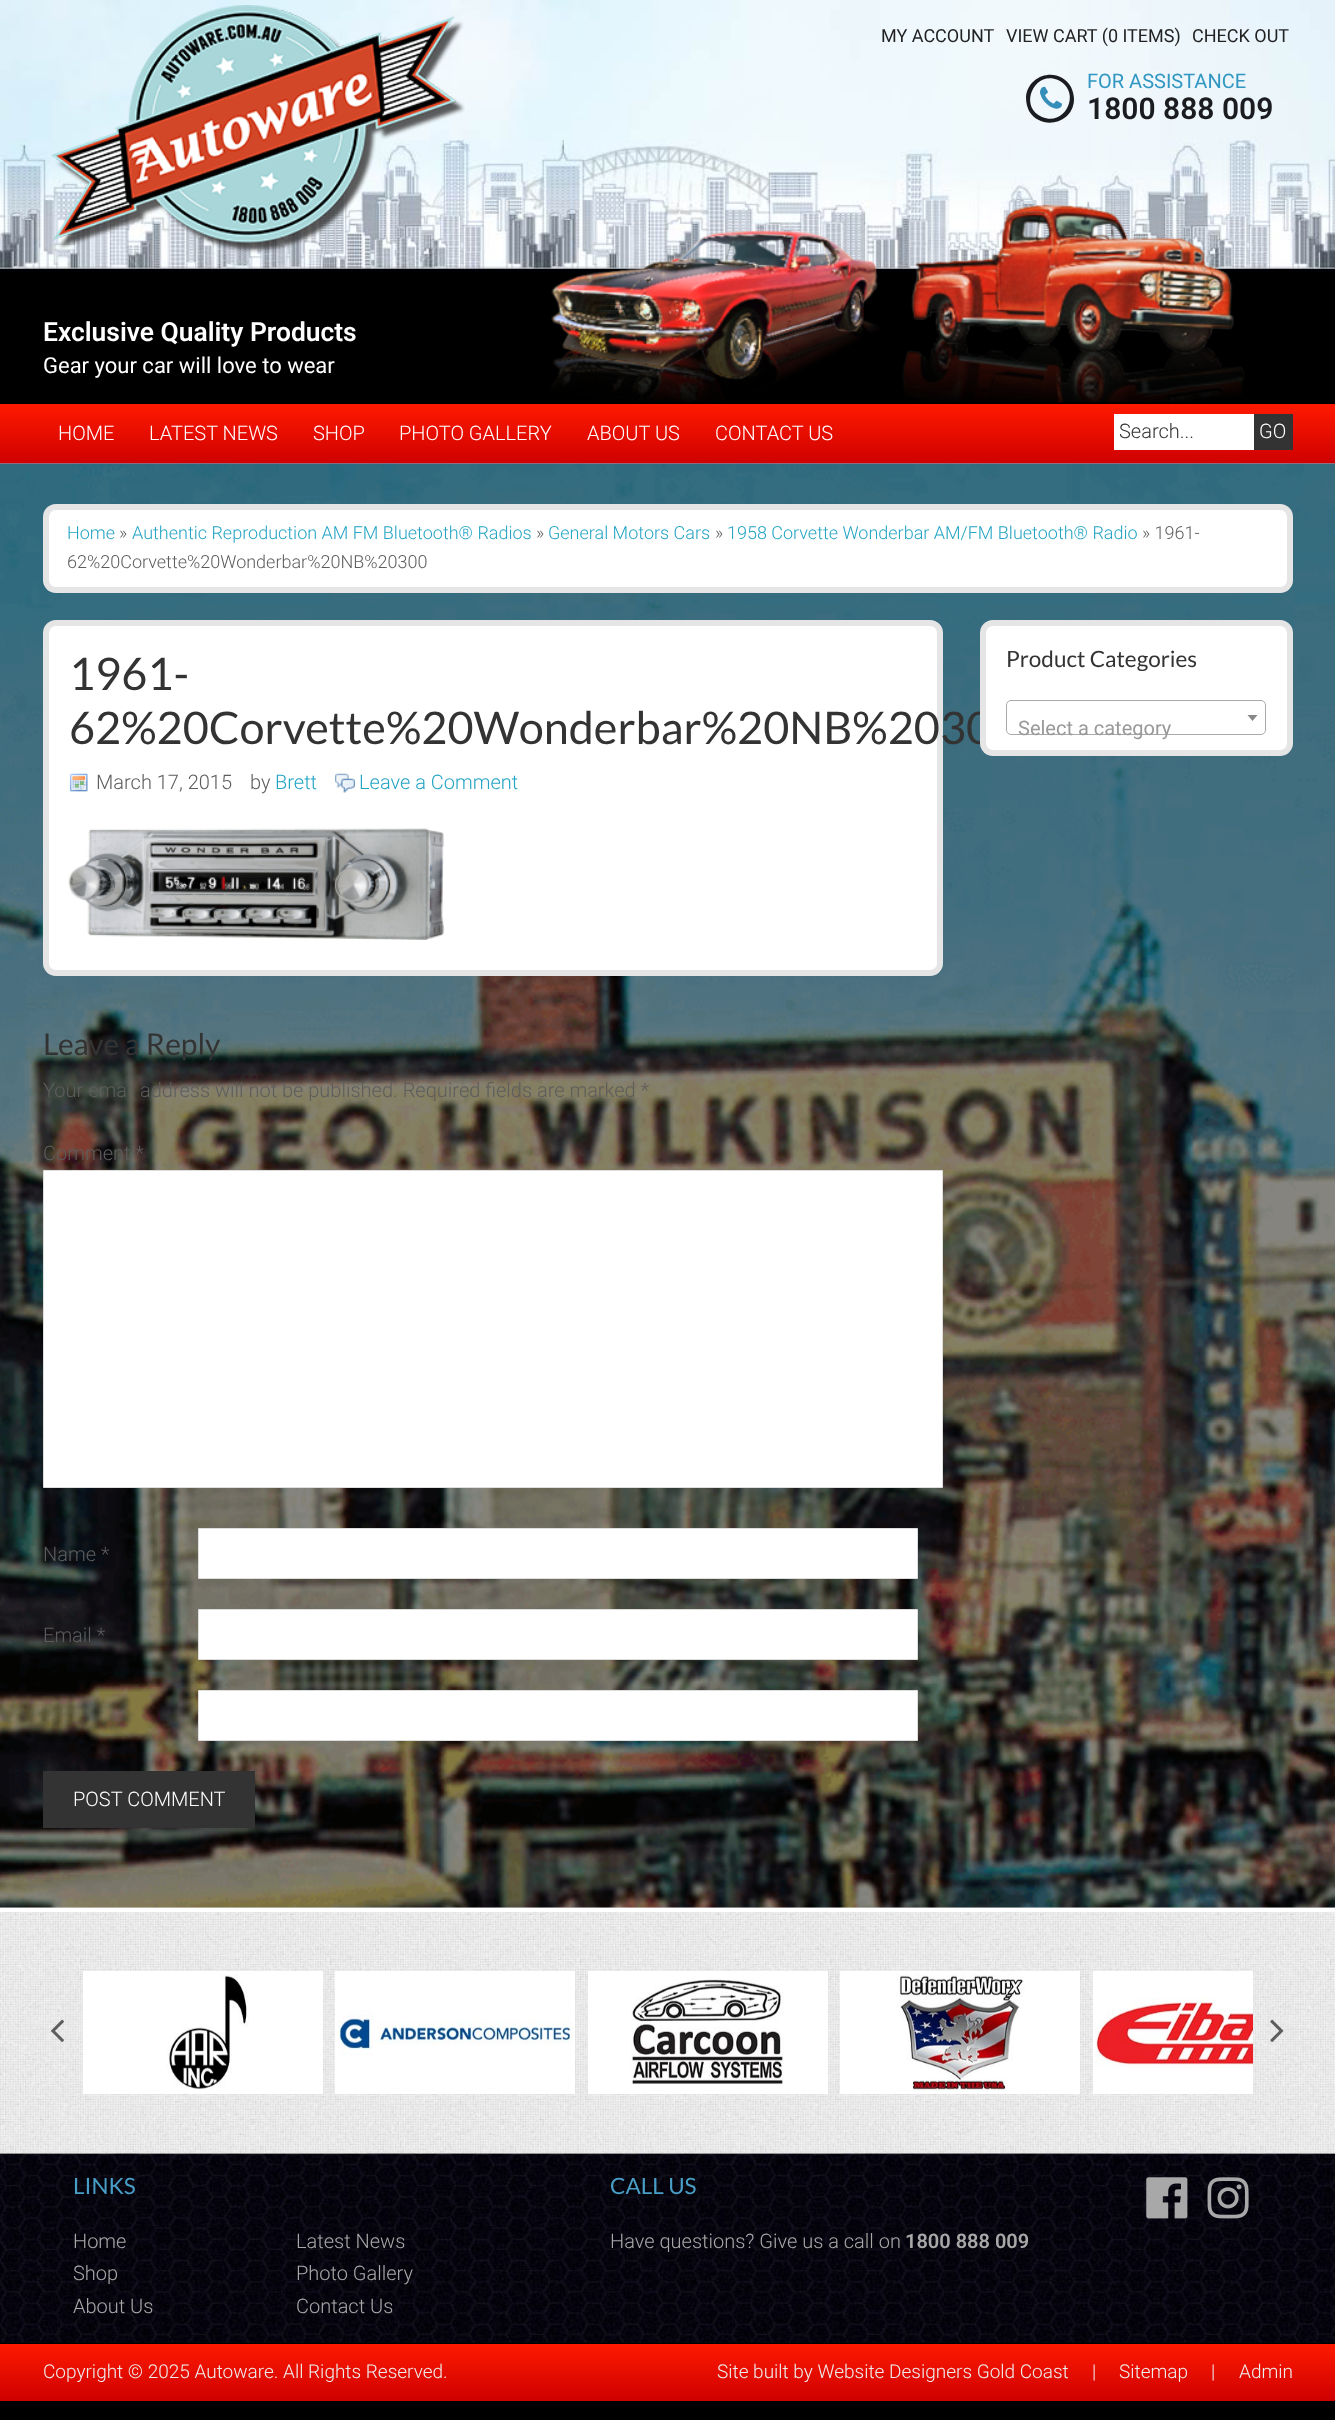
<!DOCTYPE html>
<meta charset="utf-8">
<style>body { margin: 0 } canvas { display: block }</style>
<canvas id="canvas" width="1335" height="2420"></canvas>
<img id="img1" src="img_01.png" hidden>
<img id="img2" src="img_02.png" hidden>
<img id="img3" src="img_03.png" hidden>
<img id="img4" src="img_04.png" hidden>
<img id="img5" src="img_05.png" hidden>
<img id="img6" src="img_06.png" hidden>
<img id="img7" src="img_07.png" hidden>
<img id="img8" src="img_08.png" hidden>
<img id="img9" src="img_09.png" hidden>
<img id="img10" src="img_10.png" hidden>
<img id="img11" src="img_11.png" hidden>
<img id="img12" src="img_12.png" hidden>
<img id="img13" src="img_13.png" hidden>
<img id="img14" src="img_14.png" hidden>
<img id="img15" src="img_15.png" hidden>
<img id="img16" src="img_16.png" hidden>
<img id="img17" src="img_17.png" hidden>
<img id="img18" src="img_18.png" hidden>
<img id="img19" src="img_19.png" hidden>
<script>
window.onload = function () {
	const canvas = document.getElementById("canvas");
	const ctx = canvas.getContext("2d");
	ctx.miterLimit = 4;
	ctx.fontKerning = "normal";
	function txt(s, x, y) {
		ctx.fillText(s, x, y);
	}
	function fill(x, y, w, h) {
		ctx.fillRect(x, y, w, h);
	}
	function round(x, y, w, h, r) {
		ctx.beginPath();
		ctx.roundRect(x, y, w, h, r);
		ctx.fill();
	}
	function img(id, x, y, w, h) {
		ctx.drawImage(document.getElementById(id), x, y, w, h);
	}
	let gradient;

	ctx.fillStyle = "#000000";
	fill(0, 0, 1335, 2420);
	img("img1", 0, 0, 1335, 273);
	img("img2", 551, 204, 694, 199);
	img("img3", 51, 5, 414, 248);
	ctx.fillStyle = "#1B1C1F";
	ctx.beginPath();
	ctx.moveTo(1058, 80);
	ctx.bezierCurveTo(1034, 70, 1018, 107, 1042, 117);
	ctx.bezierCurveTo(1066, 127, 1082, 91, 1058, 80);
	ctx.closePath();
	ctx.moveTo(1071, 87);
	ctx.bezierCurveTo(1073, 91, 1074, 96, 1074, 100);
	ctx.bezierCurveTo(1073, 124, 1041, 131, 1029, 111);
	ctx.bezierCurveTo(1027, 107, 1026, 102, 1026, 97);
	ctx.bezierCurveTo(1028, 74, 1059, 66, 1071, 87);
	ctx.closePath();
	ctx.fill();
	img("img4", 1040, 86, 22, 23);
	gradient = ctx.createLinearGradient(668, 404, 668, 464);
	gradient.addColorStop(0, "#FE1A00");
	gradient.addColorStop(1, "#CE0000");
	ctx.fillStyle = gradient;
	fill(0, 404, 1335, 60);
	ctx.fillStyle = "#FFFFFF";
	fill(1114, 414, 140, 36);
	ctx.fillStyle = "#333333";
	fill(1254, 414, 39, 36);
	img("img5", 0, 463, 1335, 1691);
	ctx.fillStyle = "#FFFFFF";
	round(43, 504, 1250, 89, 13);
	ctx.beginPath();
	ctx.roundRect(46, 507, 1244, 83, 10);
	ctx.strokeStyle = "rgba(0, 0, 0, 0.1)";
	ctx.lineWidth = 6;
	ctx.stroke();
	round(43, 620, 900, 356, 13);
	ctx.beginPath();
	ctx.roundRect(46, 623, 894, 350, 10);
	ctx.stroke();
	img("img6", 69, 773, 19, 19);
	img("img7", 335, 773, 20, 20);
	img("img8", 68, 828, 376, 112);
	ctx.beginPath();
	ctx.rect(43.5, 1170.5, 899, 317);
	ctx.fill();
	ctx.strokeStyle = "#DDDDDD";
	ctx.lineWidth = 1;
	ctx.stroke();
	ctx.beginPath();
	ctx.rect(198.5, 1528.5, 719, 50);
	ctx.fill();
	ctx.stroke();
	ctx.beginPath();
	ctx.rect(198.5, 1609.5, 719, 50);
	ctx.fill();
	ctx.stroke();
	ctx.beginPath();
	ctx.rect(198.5, 1690.5, 719, 50);
	ctx.fill();
	ctx.stroke();
	ctx.fillStyle = "#333333";
	fill(43, 1771, 212, 57);
	img("img9", 0, 1907, 1335, 247);
	ctx.fillStyle = "#FFFFFF";
	fill(0, 1908, 1335, 4);
	fill(83, 1971, 240, 123);
	img("img10", 167, 1974, 82, 116);
	fill(335, 1971, 240, 123);
	img("img11", 337, 2009, 236, 47);
	fill(588, 1971, 240, 123);
	img("img12", 631, 1979, 153, 106);
	fill(840, 1971, 240, 123);
	img("img13", 896, 1974, 129, 118);
	fill(1093, 1971, 160, 123);
	img("img14", 1095, 1997, 158, 71);
	img("img15", 51, 2019, 13, 23);
	img("img16", 1270, 2019, 14, 23);
	ctx.fillStyle = "#09070F";
	fill(0, 2342, 1335, 1);
	img("img17", 0, 2153, 1335, 190);
	img("img18", 1146, 2177, 42, 42);
	img("img19", 1207, 2177, 42, 42);
	gradient = ctx.createLinearGradient(668, 2344, 668, 2401);
	gradient.addColorStop(0, "#FE1A00");
	gradient.addColorStop(1, "#CE0000");
	ctx.fillStyle = gradient;
	fill(0, 2344, 1335, 57);
	ctx.font = "18px Roboto";
	ctx.fillStyle = "#222222";
	txt("MY ACCOUNT", 881, 42);
	txt("VIEW CART (0 ITEMS)", 1006, 42);
	txt("CHECK OUT", 1192, 42);
	ctx.font = "20px Roboto";
	ctx.fillStyle = "#3097C2";
	txt("FOR ASSISTANCE", 1087, 88);
	ctx.font = "600 30px Roboto";
	ctx.fillStyle = "#1B1C1F";
	txt("1800 888 009", 1087, 119);
	ctx.font = "600 26.4px Roboto";
	ctx.fillStyle = "#FFFFFF";
	txt("Exclusive Quality Products", 43, 341);
	ctx.font = "22px Roboto";
	txt("Gear your car will love to wear", 43, 373);
	ctx.font = "300 20px Roboto";
	txt("HOME", 58, 440);
	txt("LATEST NEWS", 149, 440);
	txt("SHOP", 313, 440);
	txt("PHOTO GALLERY", 399, 440);
	txt("ABOUT US", 587, 440);
	txt("CONTACT US", 715, 440);
	ctx.fillStyle = "#333333";
	txt("Search...", 1119, 438);
	ctx.fillStyle = "#FFFFFF";
	txt("GO", 1259, 438);
	ctx.font = "300 18px Roboto";
	ctx.fillStyle = "#23A4C4";
	txt("Home", 67, 539);
	ctx.fillStyle = "#5D5D5D";
	txt("»", 119, 539);
	ctx.fillStyle = "#23A4C4";
	txt("Authentic Reproduction AM FM Bluetooth® Radios", 132, 539);
	ctx.fillStyle = "#5D5D5D";
	txt("»", 536, 539);
	ctx.fillStyle = "#23A4C4";
	txt("General Motors Cars", 548, 539);
	ctx.fillStyle = "#5D5D5D";
	txt("»", 715, 539);
	ctx.fillStyle = "#23A4C4";
	txt("1958 Corvette Wonderbar AM/FM Bluetooth® Radio", 727, 539);
	ctx.fillStyle = "#5D5D5D";
	txt("» 1961-", 1142, 539);
	txt("62%20Corvette%20Wonderbar%20NB%20300", 67, 568);
	ctx.font = "45px Lato";
	ctx.fillStyle = "#333333";
	txt("1961-", 69, 690);
	txt("62%20Corvette%20Wonderbar%20NB%2030", 69, 744);
	ctx.font = "300 20px Roboto";
	ctx.fillStyle = "#5D5D5D";
	txt("March 17, 2015", 96, 789);
	txt("by", 250, 789);
	ctx.fillStyle = "#23A4C4";
	txt("Brett", 275, 789);
	txt("Leave a Comment", 359, 789);
	ctx.font = "30px Lato";
	ctx.fillStyle = "#333333";
	txt("Leave a Reply", 43, 1055);
	ctx.font = "300 20px Roboto";
	ctx.fillStyle = "#5D5D5D";
	txt("Your ema", 43, 1097);
	txt("address will not be published. Required fields are marked *", 140, 1097);
	txt("Comment *", 43, 1160);
	txt("Name *", 43, 1561);
	txt("Email *", 43, 1642);
	ctx.fillStyle = "#FFFFFF";
	txt("POST COMMENT", 73, 1806);
	round(980, 620, 313, 136, 13);
	ctx.beginPath();
	ctx.roundRect(983, 623, 307, 130, 10);
	ctx.strokeStyle = "rgba(0, 0, 0, 0.1)";
	ctx.lineWidth = 6;
	ctx.stroke();
	ctx.font = "22.5px Lato";
	ctx.fillStyle = "#333333";
	txt("Product Categories", 1006, 667);
	ctx.beginPath();
	ctx.roundRect(1006.5, 700.5, 259, 34, 4.5);
	ctx.strokeStyle = "#AAAAAA";
	ctx.lineWidth = 1;
	ctx.stroke();
	ctx.fillStyle = "#888888";
	ctx.beginPath();
	ctx.moveTo(1247.5, 715);
	ctx.lineTo(1257.5, 715);
	ctx.lineTo(1252.5, 721);
	ctx.closePath();
	ctx.fill();
	ctx.font = "20px Roboto";
	ctx.fillStyle = "#999999";
	txt("Select a category", 1018, 735);
	ctx.font = "22.5px Lato";
	ctx.fillStyle = "#489EC7";
	txt("LINKS", 73, 2194);
	ctx.font = "300 20px Roboto";
	ctx.fillStyle = "#A8A8A8";
	txt("Home", 73, 2248);
	txt("Latest News", 296, 2248);
	txt("Shop", 73, 2280);
	txt("Photo Gallery", 296, 2280);
	txt("About Us", 73, 2313);
	txt("Contact Us", 296, 2313);
	ctx.font = "22.5px Lato";
	ctx.fillStyle = "#489EC7";
	txt("CALL US", 610, 2194);
	ctx.font = "300 20px Roboto";
	ctx.fillStyle = "#A8A8A8";
	txt("Have questions? Give us a call on", 610, 2248);
	ctx.font = "600 20px Roboto";
	txt("1800 888 009", 905, 2248);
	ctx.font = "300 19px Roboto";
	ctx.fillStyle = "#EEEEEE";
	txt("Copyright © 2025 Autoware. All Rights Reserved.", 43, 2378);
	txt("Site built by Website Designers Gold Coast", 717, 2378);
	txt("|", 1092, 2378);
	txt("Sitemap", 1119, 2378);
	txt("|", 1211, 2378);
	txt("Admin", 1239, 2378);
};
</script>
